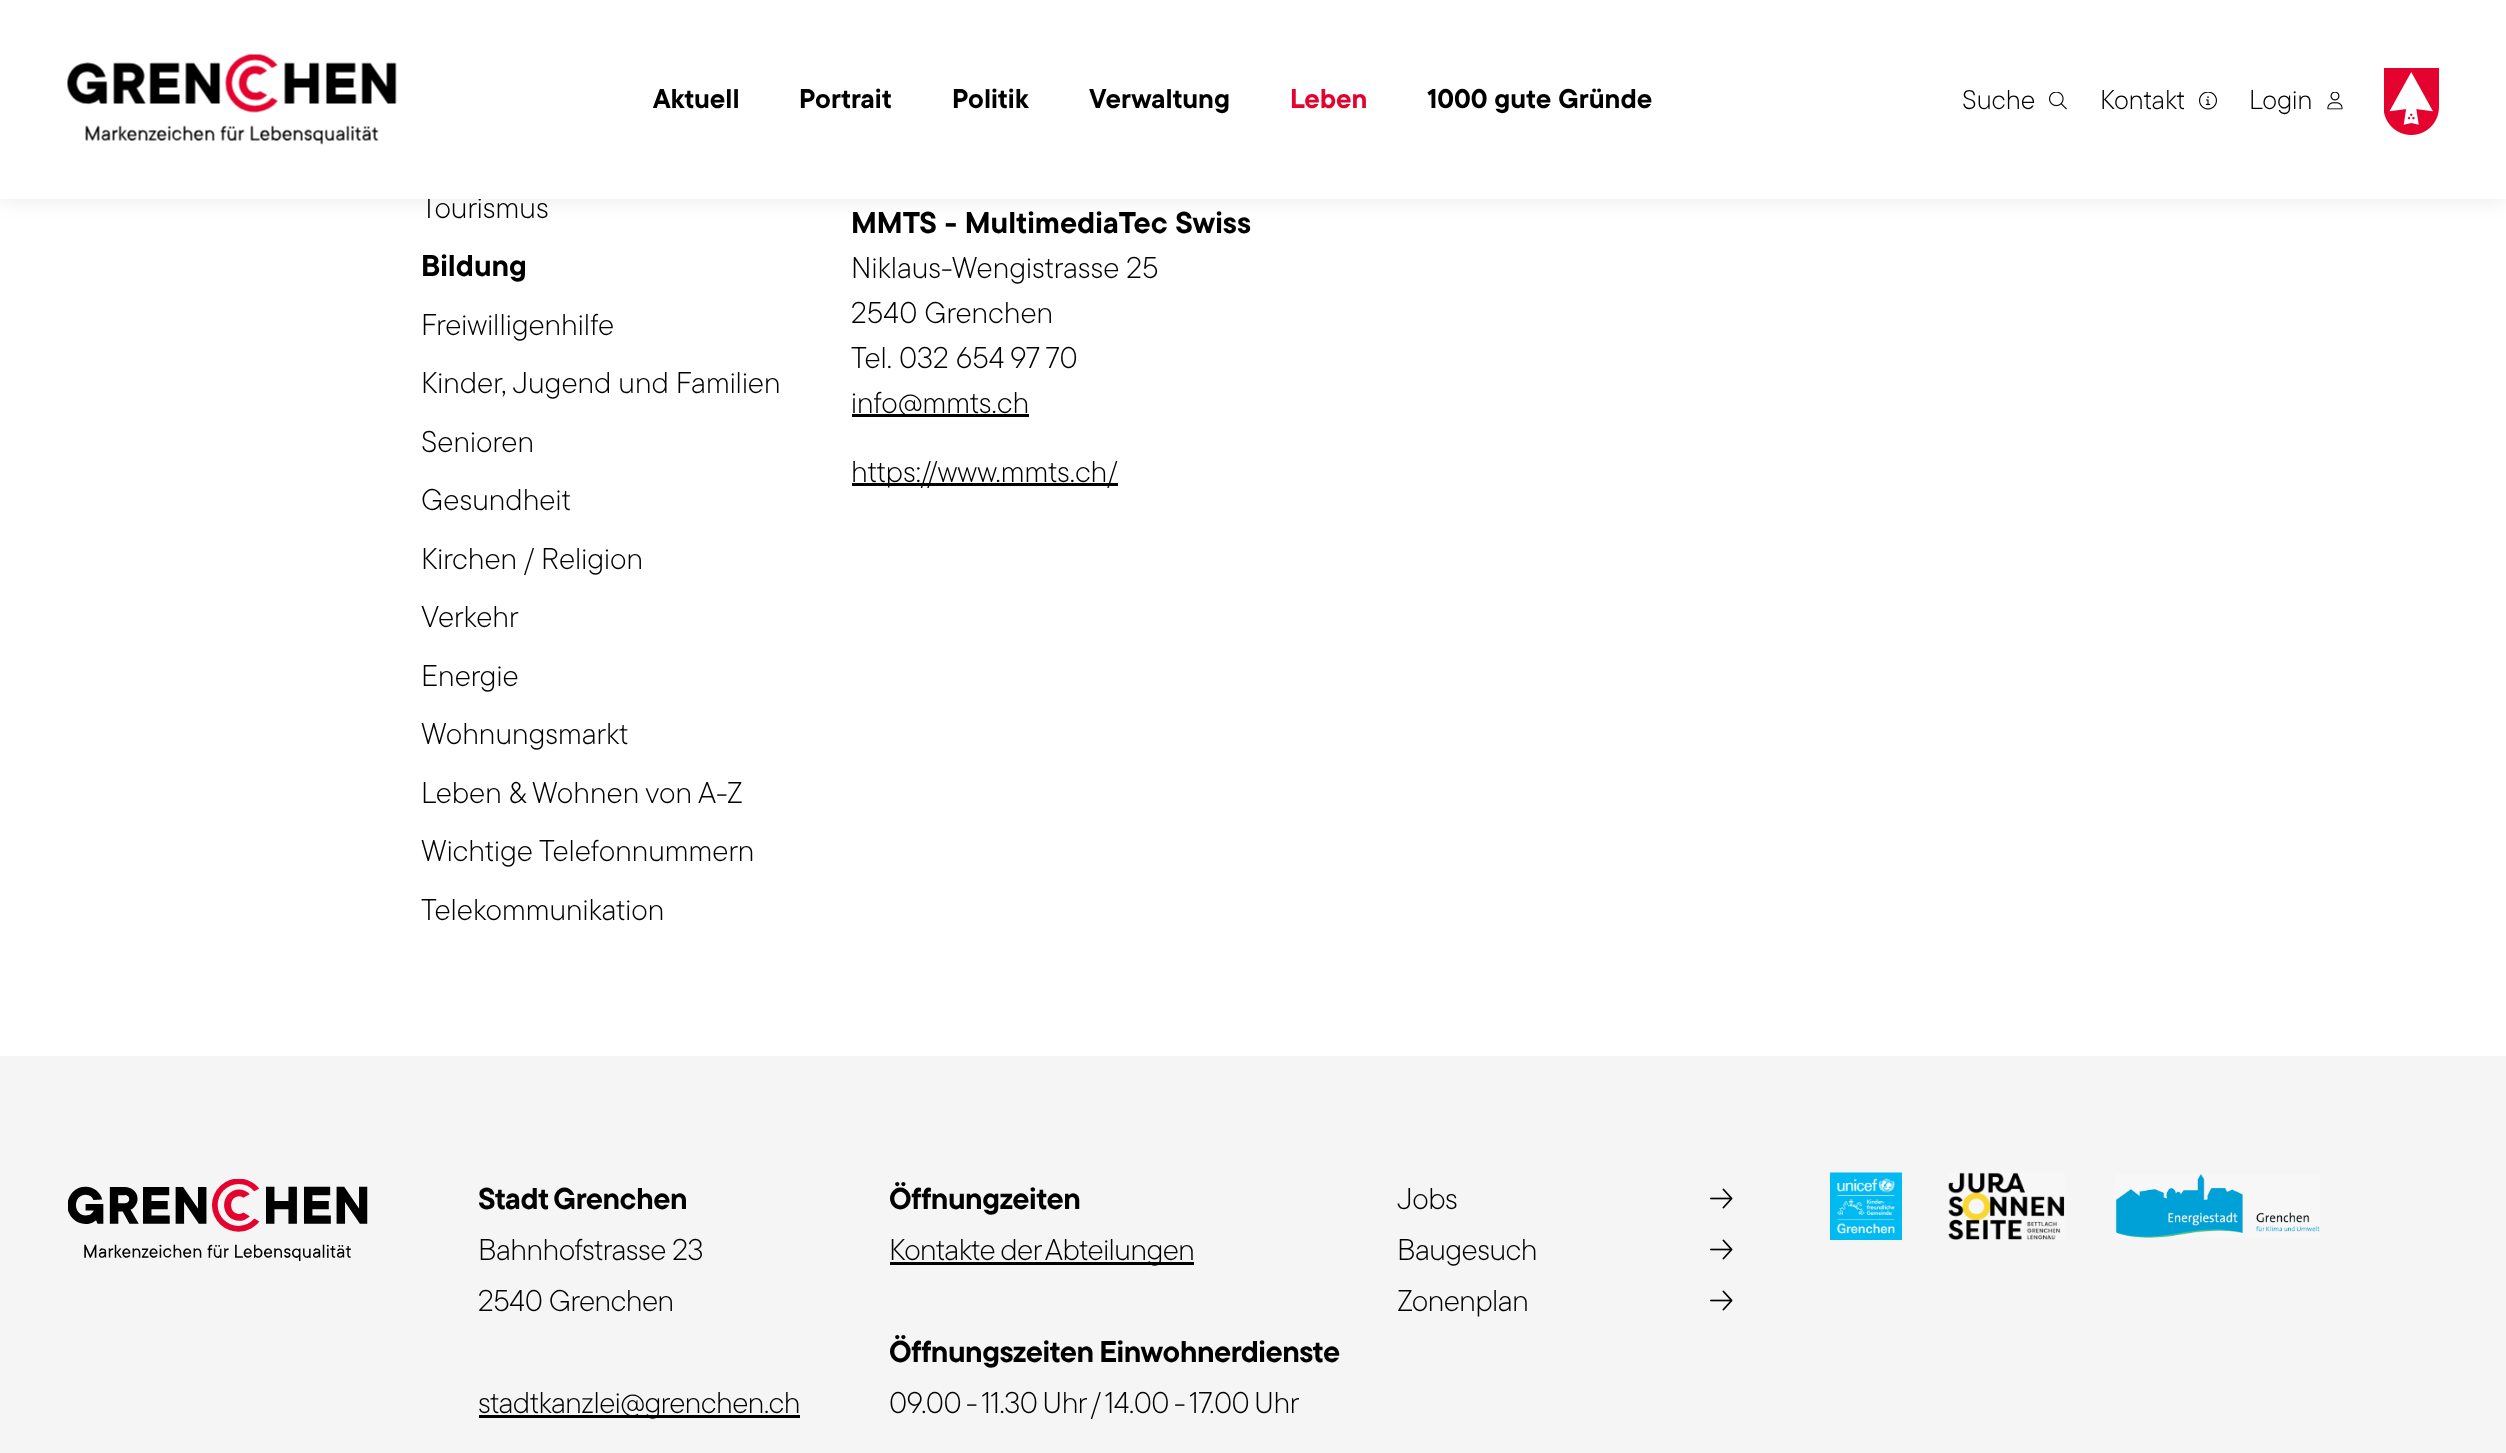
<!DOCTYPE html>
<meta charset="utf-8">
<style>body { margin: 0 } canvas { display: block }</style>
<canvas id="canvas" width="2506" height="1453"></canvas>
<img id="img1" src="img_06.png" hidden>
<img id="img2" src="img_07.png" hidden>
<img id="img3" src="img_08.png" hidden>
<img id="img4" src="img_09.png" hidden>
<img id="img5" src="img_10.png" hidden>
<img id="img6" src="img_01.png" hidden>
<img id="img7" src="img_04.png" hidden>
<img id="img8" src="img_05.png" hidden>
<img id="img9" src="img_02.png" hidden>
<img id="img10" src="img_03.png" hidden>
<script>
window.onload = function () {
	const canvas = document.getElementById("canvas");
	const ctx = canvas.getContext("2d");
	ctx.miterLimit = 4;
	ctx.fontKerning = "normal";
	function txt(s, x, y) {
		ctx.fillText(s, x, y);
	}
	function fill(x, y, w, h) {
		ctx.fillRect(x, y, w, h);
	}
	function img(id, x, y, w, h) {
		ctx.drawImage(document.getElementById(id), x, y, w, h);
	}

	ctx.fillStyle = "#FFFFFF";
	fill(0, 0, 2506, 1453);
	ctx.fillStyle = "rgba(0, 0, 0, 0.1)";
	ctx.filter = "blur(11px)";
	ctx.beginPath();
	ctx.rect(0, 0, 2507, 198);
	ctx.fill();
	ctx.filter = "none";
	ctx.fillStyle = "#000000";
	fill(852, 414, 177, 3);
	fill(852, 483, 266, 3);
	ctx.fillStyle = "#F5F5F5";
	fill(0, 1056, 2506, 397);
	img("img1", 68, 1179, 300, 82);
	ctx.fillStyle = "#000000";
	fill(479, 1415, 321, 3);
	fill(890, 1262, 304, 3);
	img("img2", 1710, 1188, 23, 21);
	img("img2", 1710, 1239, 23, 21);
	img("img2", 1710, 1290, 23, 21);
	img("img3", 1830, 1172, 72, 68);
	img("img4", 1948, 1172, 117, 68);
	img("img5", 2115, 1174, 205, 64);
	ctx.font = "300 30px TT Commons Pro";
	txt("Tourismus", 421, 218);
	ctx.fillStyle = "#FFFFFF";
	fill(0, 0, 2506, 199);
	img("img6", 67, 54, 330, 91);
	img("img7", 2327, 92, 16, 18);
	ctx.font = "300 27px TT Commons Pro";
	ctx.fillStyle = "#000000";
	txt("Login", 2249, 109);
	img("img8", 2384, 68, 55, 67);
	img("img9", 2049, 92, 18, 18);
	txt("Suche", 1962, 109);
	img("img10", 2199, 92, 18, 18);
	txt("Kontakt", 2100, 109);
	ctx.font = "bold 27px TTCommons";
	txt("1000 gute Gründe", 1427, 108);
	ctx.fillStyle = "#E4032E";
	txt("Leben", 1290, 108);
	ctx.fillStyle = "#000000";
	txt("Verwaltung", 1089, 108);
	txt("Politik", 952, 108);
	txt("Portrait", 799, 108);
	txt("Aktuell", 653, 108);
	ctx.font = "bold 30px TTCommons";
	txt("Bildung", 421, 276);
	ctx.font = "300 30px TT Commons Pro";
	txt("Freiwilligenhilfe", 421, 335);
	txt("Kinder, Jugend und Familien", 421, 393);
	txt("Senioren", 421, 452);
	txt("Gesundheit", 421, 510);
	txt("Kirchen / Religion", 421, 569);
	txt("Verkehr", 421, 627);
	txt("Energie", 421, 686);
	txt("Wohnungsmarkt", 421, 744);
	txt("Leben & Wohnen von A-Z", 421, 803);
	txt("Wichtige Telefonnummern", 421, 861);
	txt("Telekommunikation", 421, 920);
	ctx.font = "bold 30px TTCommons";
	txt("MMTS - MultimediaTec Swiss", 851, 233);
	ctx.font = "300 30px TT Commons Pro";
	txt("Niklaus-Wengistrasse 25", 851, 278);
	txt("2540 Grenchen", 851, 323);
	txt("Tel. 032 654 97 70", 851, 368);
	txt("info@mmts.ch", 851, 413);
	txt("https://www.mmts.ch/", 851, 482);
	ctx.letterSpacing = "-0.5px";
	ctx.wordSpacing = "-1.5px";
	ctx.font = "bold 30px TTCommons";
	txt("Stadt Grenchen", 478, 1209);
	ctx.wordSpacing = "0px";
	ctx.font = "300 30px TT Commons Pro";
	txt("Bahnhofstrasse 23", 478, 1260);
	txt("2540 Grenchen", 478, 1311);
	txt("stadtkanzlei@grenchen.ch", 478, 1413);
	ctx.font = "bold 30px TTCommons";
	txt("Öffnungzeiten", 889, 1209);
	ctx.wordSpacing = "-1.5px";
	ctx.font = "300 30px TT Commons Pro";
	txt("Kontakte der Abteilungen", 889, 1260);
	ctx.font = "bold 30px TTCommons";
	txt("Öffnungszeiten Einwohnerdienste", 889, 1362);
	ctx.font = "300 30px TT Commons Pro";
	txt("09.00 - 11.30 Uhr / 14.00 - 17.00 Uhr", 889, 1413);
	ctx.wordSpacing = "0px";
	txt("Jobs", 1397, 1209);
	txt("Baugesuch", 1397, 1260);
	txt("Zonenplan", 1397, 1311);
};
</script>
